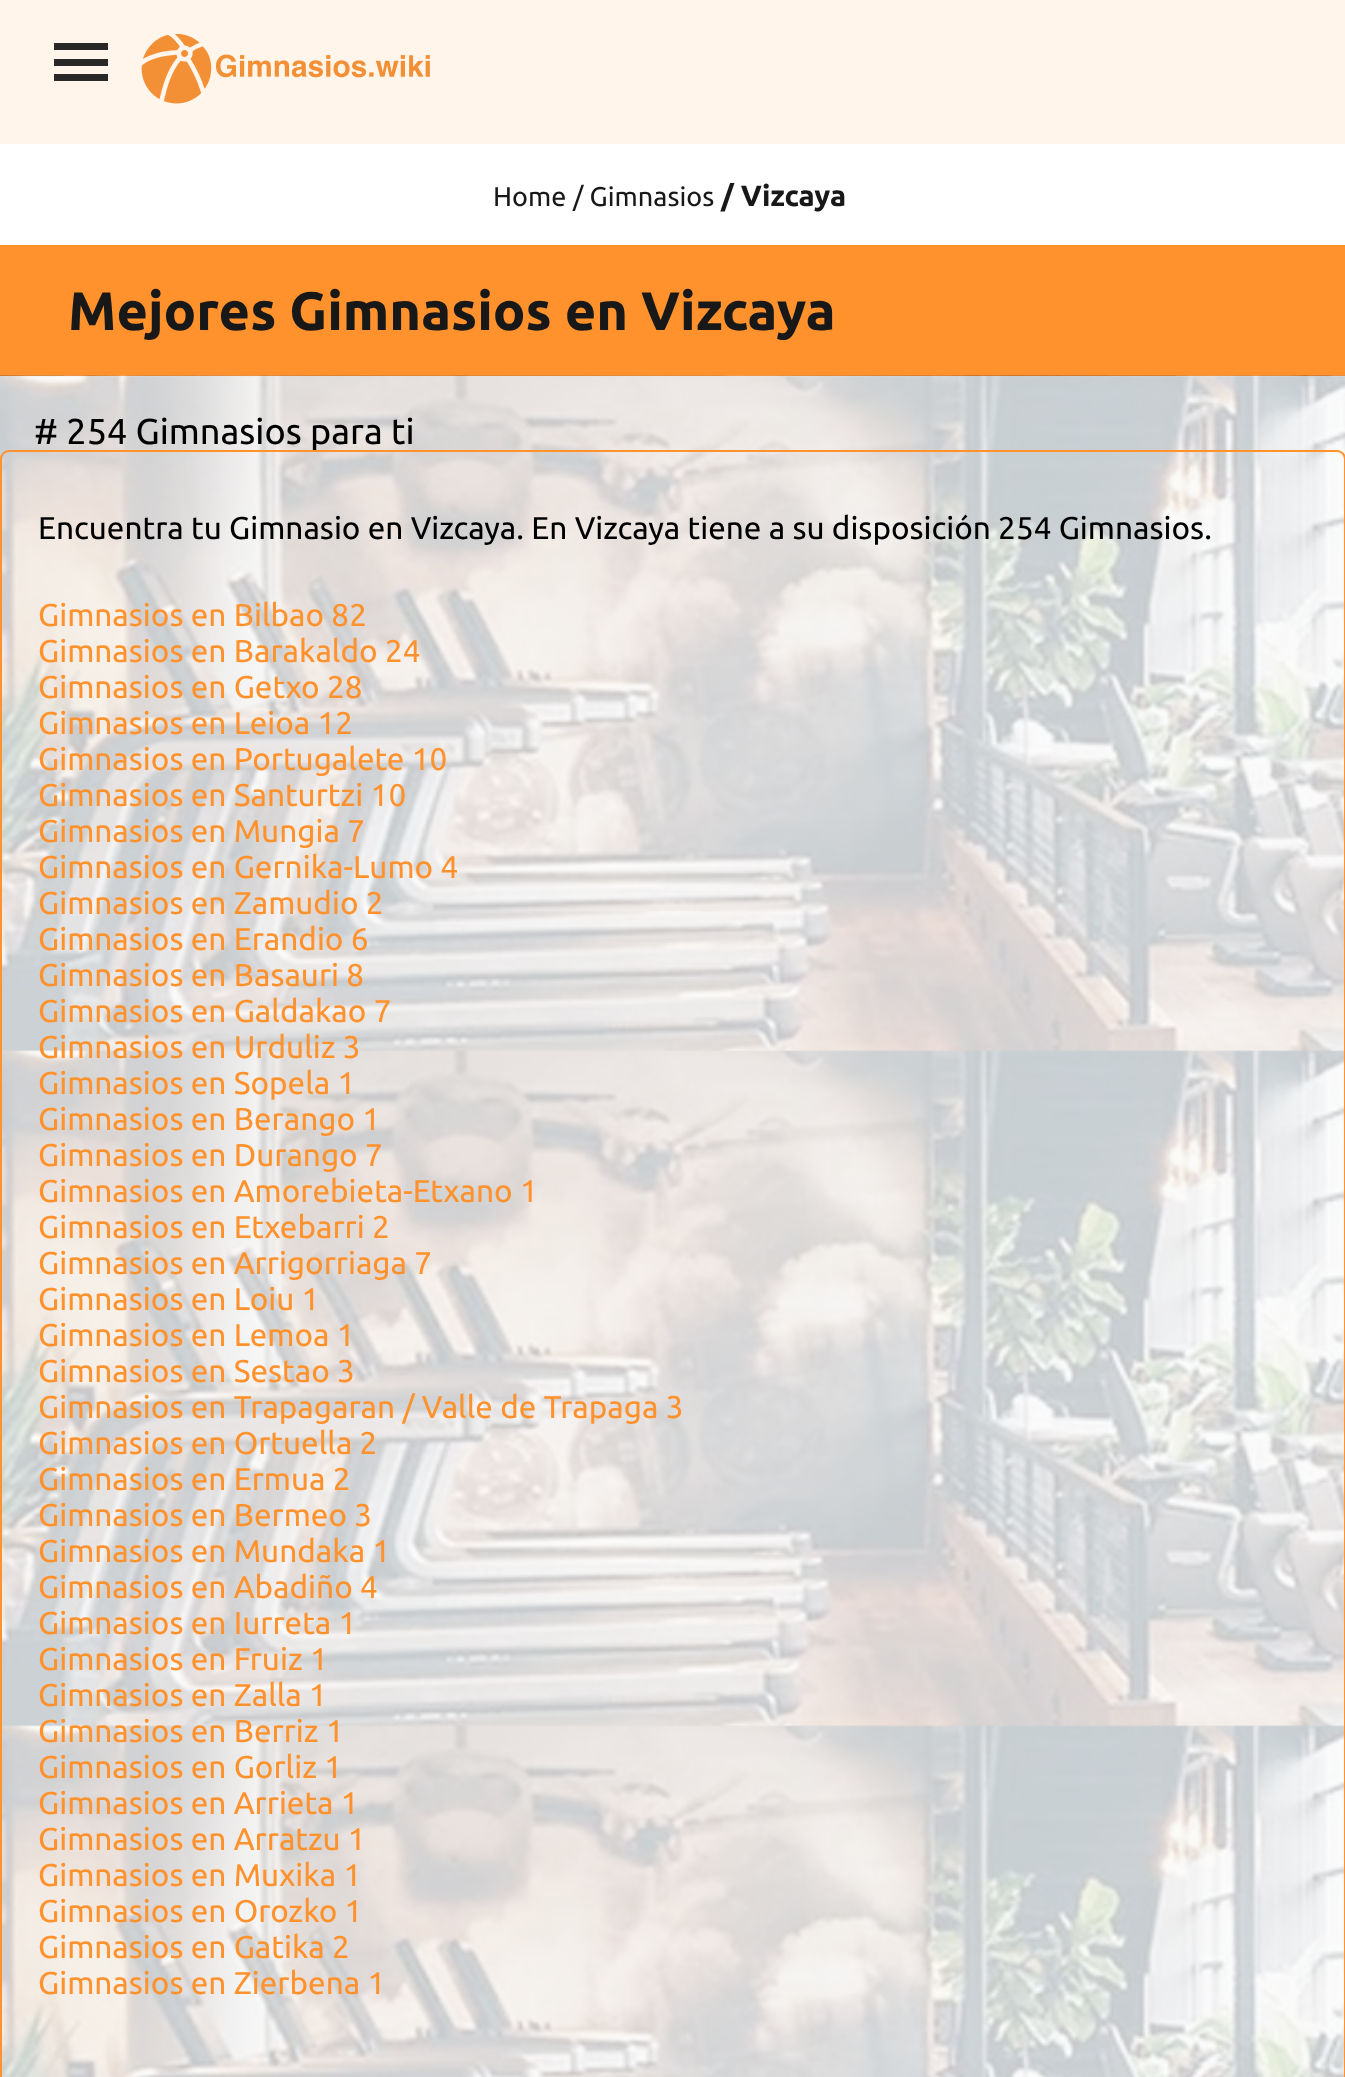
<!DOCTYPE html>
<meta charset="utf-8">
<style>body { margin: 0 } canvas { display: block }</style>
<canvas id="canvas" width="1345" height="2077"></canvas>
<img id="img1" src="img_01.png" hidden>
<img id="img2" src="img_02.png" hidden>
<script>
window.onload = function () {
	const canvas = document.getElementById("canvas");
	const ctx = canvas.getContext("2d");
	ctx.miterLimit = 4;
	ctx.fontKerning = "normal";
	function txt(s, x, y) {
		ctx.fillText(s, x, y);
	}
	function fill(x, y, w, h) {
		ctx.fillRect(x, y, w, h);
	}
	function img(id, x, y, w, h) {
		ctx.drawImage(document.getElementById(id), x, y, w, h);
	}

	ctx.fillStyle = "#FFFFFF";
	fill(0, 0, 1345, 2077);
	ctx.fillStyle = "#FFF5EB";
	fill(0, 0, 1345, 144);
	ctx.fillStyle = "#282828";
	fill(54, 43, 54, 7);
	fill(54, 59, 54, 7);
	fill(54, 74, 54, 7);
	img("img1", 141, 34, 289, 70);
	ctx.fillStyle = "#FF922D";
	fill(0, 245, 1345, 131);
	img("img2", 0, 375, 1345, 1702);
	ctx.font = "27px Ubuntu";
	ctx.fillStyle = "#181818";
	txt("Home", 493, 206);
	txt("/ Gimnasios", 573, 206);
	ctx.font = "bold 29.25px Ubuntu";
	txt("/ Vizcaya", 721, 206);
	ctx.font = "bold 54px Ubuntu";
	txt("Mejores Gimnasios en Vizcaya", 68, 330);
	ctx.font = "36px Ubuntu";
	ctx.fillStyle = "#000000";
	txt("# 254 Gimnasios para ti", 34, 444);
	ctx.beginPath();
	ctx.roundRect(1, 451, 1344, 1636, 8);
	ctx.strokeStyle = "#FF922D";
	ctx.lineWidth = 2;
	ctx.stroke();
	ctx.font = "31.5px Ubuntu";
	txt("Encuentra tu Gimnasio en Vizcaya. En Vizcaya tiene a su disposición 254 Gimnasios.", 38, 539);
	ctx.fillStyle = "#FF922D";
	txt("Gimnasios en Bilbao 82", 38, 626);
	txt("Gimnasios en Barakaldo 24", 38, 662);
	txt("Gimnasios en Getxo 28", 38, 698);
	txt("Gimnasios en Leioa 12", 38, 734);
	txt("Gimnasios en Portugalete 10", 38, 770);
	txt("Gimnasios en Santurtzi 10", 38, 806);
	txt("Gimnasios en Mungia 7", 38, 842);
	txt("Gimnasios en Gernika-Lumo 4", 38, 878);
	txt("Gimnasios en Zamudio 2", 38, 914);
	txt("Gimnasios en Erandio 6", 38, 950);
	txt("Gimnasios en Basauri 8", 38, 986);
	txt("Gimnasios en Galdakao 7", 38, 1022);
	txt("Gimnasios en Urduliz 3", 38, 1058);
	txt("Gimnasios en Sopela 1", 38, 1094);
	txt("Gimnasios en Berango 1", 38, 1130);
	txt("Gimnasios en Durango 7", 38, 1166);
	txt("Gimnasios en Amorebieta-Etxano 1", 38, 1202);
	txt("Gimnasios en Etxebarri 2", 38, 1238);
	txt("Gimnasios en Arrigorriaga 7", 38, 1274);
	txt("Gimnasios en Loiu 1", 38, 1310);
	txt("Gimnasios en Lemoa 1", 38, 1346);
	txt("Gimnasios en Sestao 3", 38, 1382);
	txt("Gimnasios en Trapagaran / Valle de Trapaga 3", 38, 1418);
	txt("Gimnasios en Ortuella 2", 38, 1454);
	txt("Gimnasios en Ermua 2", 38, 1490);
	txt("Gimnasios en Bermeo 3", 38, 1526);
	txt("Gimnasios en Mundaka 1", 38, 1562);
	txt("Gimnasios en Abadiño 4", 38, 1598);
	txt("Gimnasios en Iurreta 1", 38, 1634);
	txt("Gimnasios en Fruiz 1", 38, 1670);
	txt("Gimnasios en Zalla 1", 38, 1706);
	txt("Gimnasios en Berriz 1", 38, 1742);
	txt("Gimnasios en Gorliz 1", 38, 1778);
	txt("Gimnasios en Arrieta 1", 38, 1814);
	txt("Gimnasios en Arratzu 1", 38, 1850);
	txt("Gimnasios en Muxika 1", 38, 1886);
	txt("Gimnasios en Orozko 1", 38, 1922);
	txt("Gimnasios en Gatika 2", 38, 1958);
	txt("Gimnasios en Zierbena 1", 38, 1994);
};
</script>
